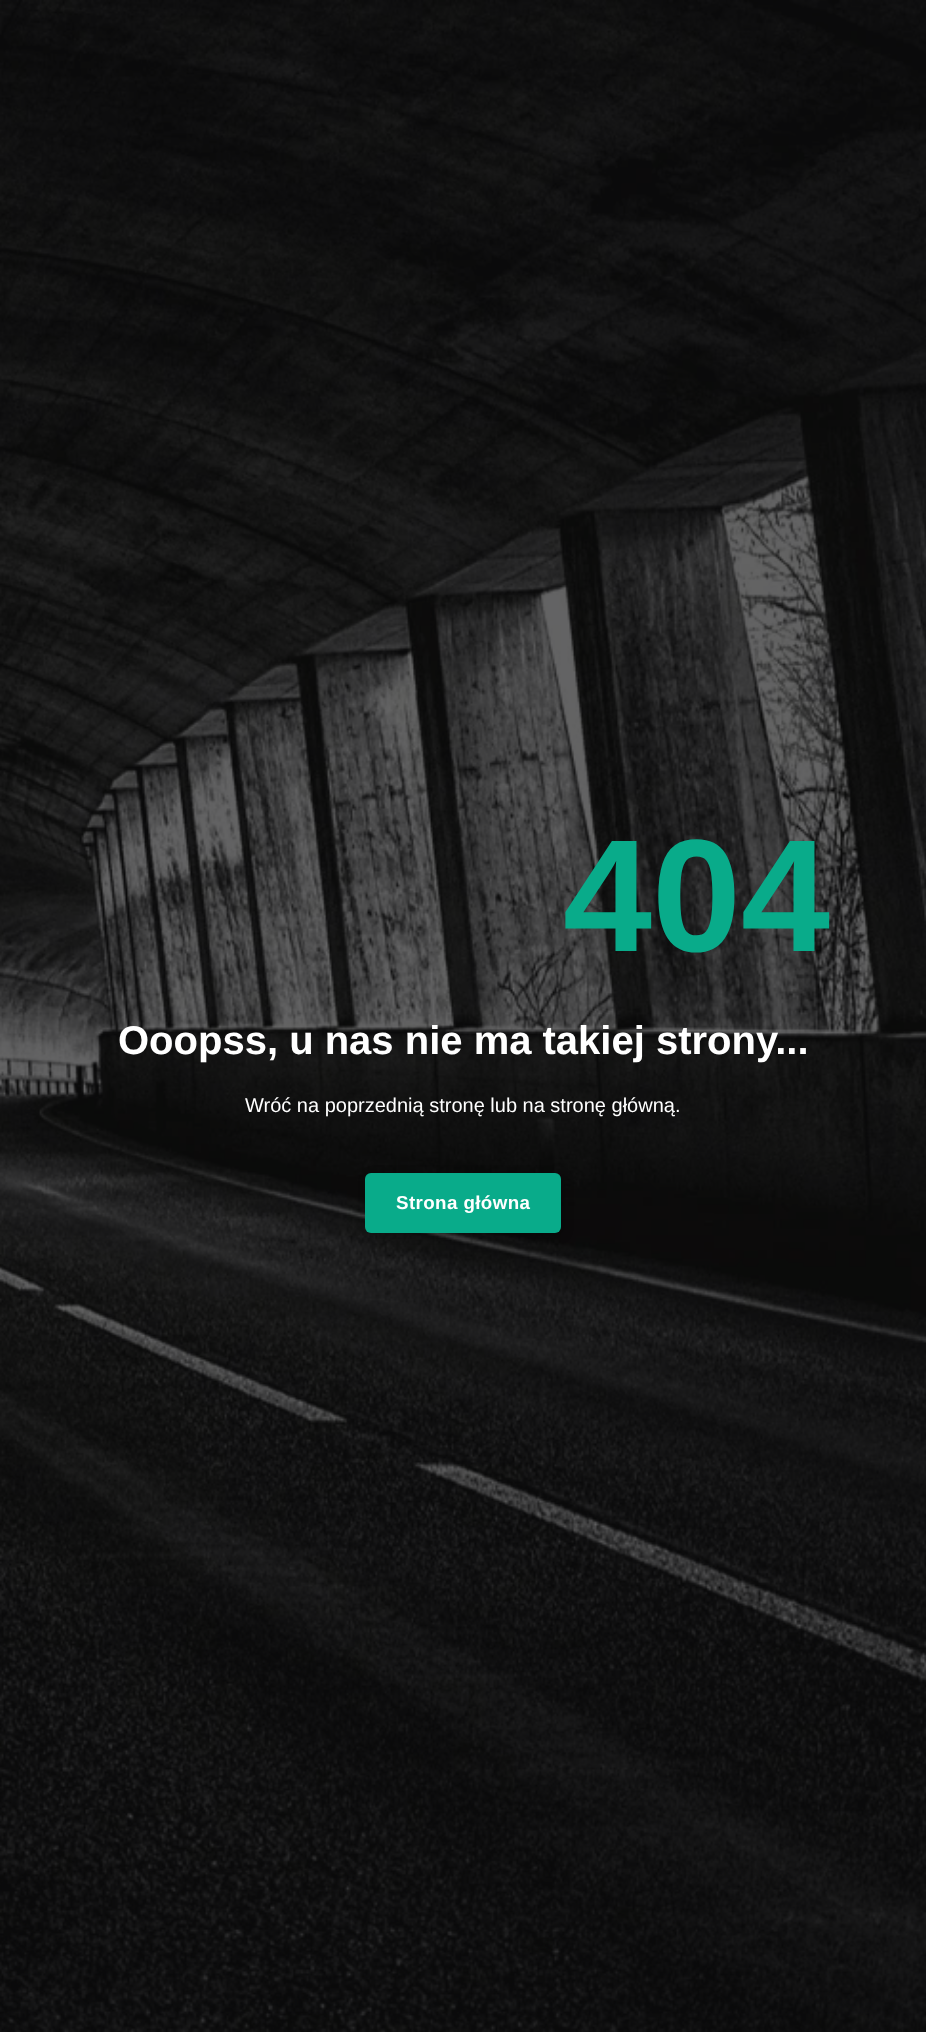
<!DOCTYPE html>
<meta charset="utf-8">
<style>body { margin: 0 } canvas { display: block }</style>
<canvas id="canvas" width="926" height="2032"></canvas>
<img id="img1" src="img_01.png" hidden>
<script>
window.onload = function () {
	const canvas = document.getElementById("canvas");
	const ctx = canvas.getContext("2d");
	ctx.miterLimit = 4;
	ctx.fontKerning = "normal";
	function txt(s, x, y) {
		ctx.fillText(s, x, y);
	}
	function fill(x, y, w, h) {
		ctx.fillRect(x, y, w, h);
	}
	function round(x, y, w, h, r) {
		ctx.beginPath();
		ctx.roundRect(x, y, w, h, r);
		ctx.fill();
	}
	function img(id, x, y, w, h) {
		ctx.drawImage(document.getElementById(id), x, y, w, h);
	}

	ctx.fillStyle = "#FFFFFF";
	fill(0, 0, 926, 2032);
	img("img1", 0, 0, 926, 2032);
	ctx.fillStyle = "rgba(0, 0, 0, 0.24)";
	ctx.filter = "blur(5px)";
	ctx.beginPath();
	ctx.roundRect(368, 1175, 196, 60, 6);
	ctx.fill();
	ctx.filter = "none";
	ctx.fillStyle = "#09AB8A";
	round(365, 1173, 196, 60, 6);
	ctx.font = "bold 160px Liberation Sans";
	txt("404", 563, 951);
	ctx.font = "bold 40px Liberation Sans";
	ctx.fillStyle = "#FFFFFF";
	txt("Ooopss, u nas nie ma takiej strony...", 118, 1054);
	ctx.font = "20px Liberation Sans";
	txt("Wróć na poprzednią stronę lub na stronę główną.", 245, 1112);
	ctx.letterSpacing = "0.4px";
	ctx.font = "bold 18.75px Liberation Sans";
	txt("Strona główna", 396, 1209);
};
</script>
